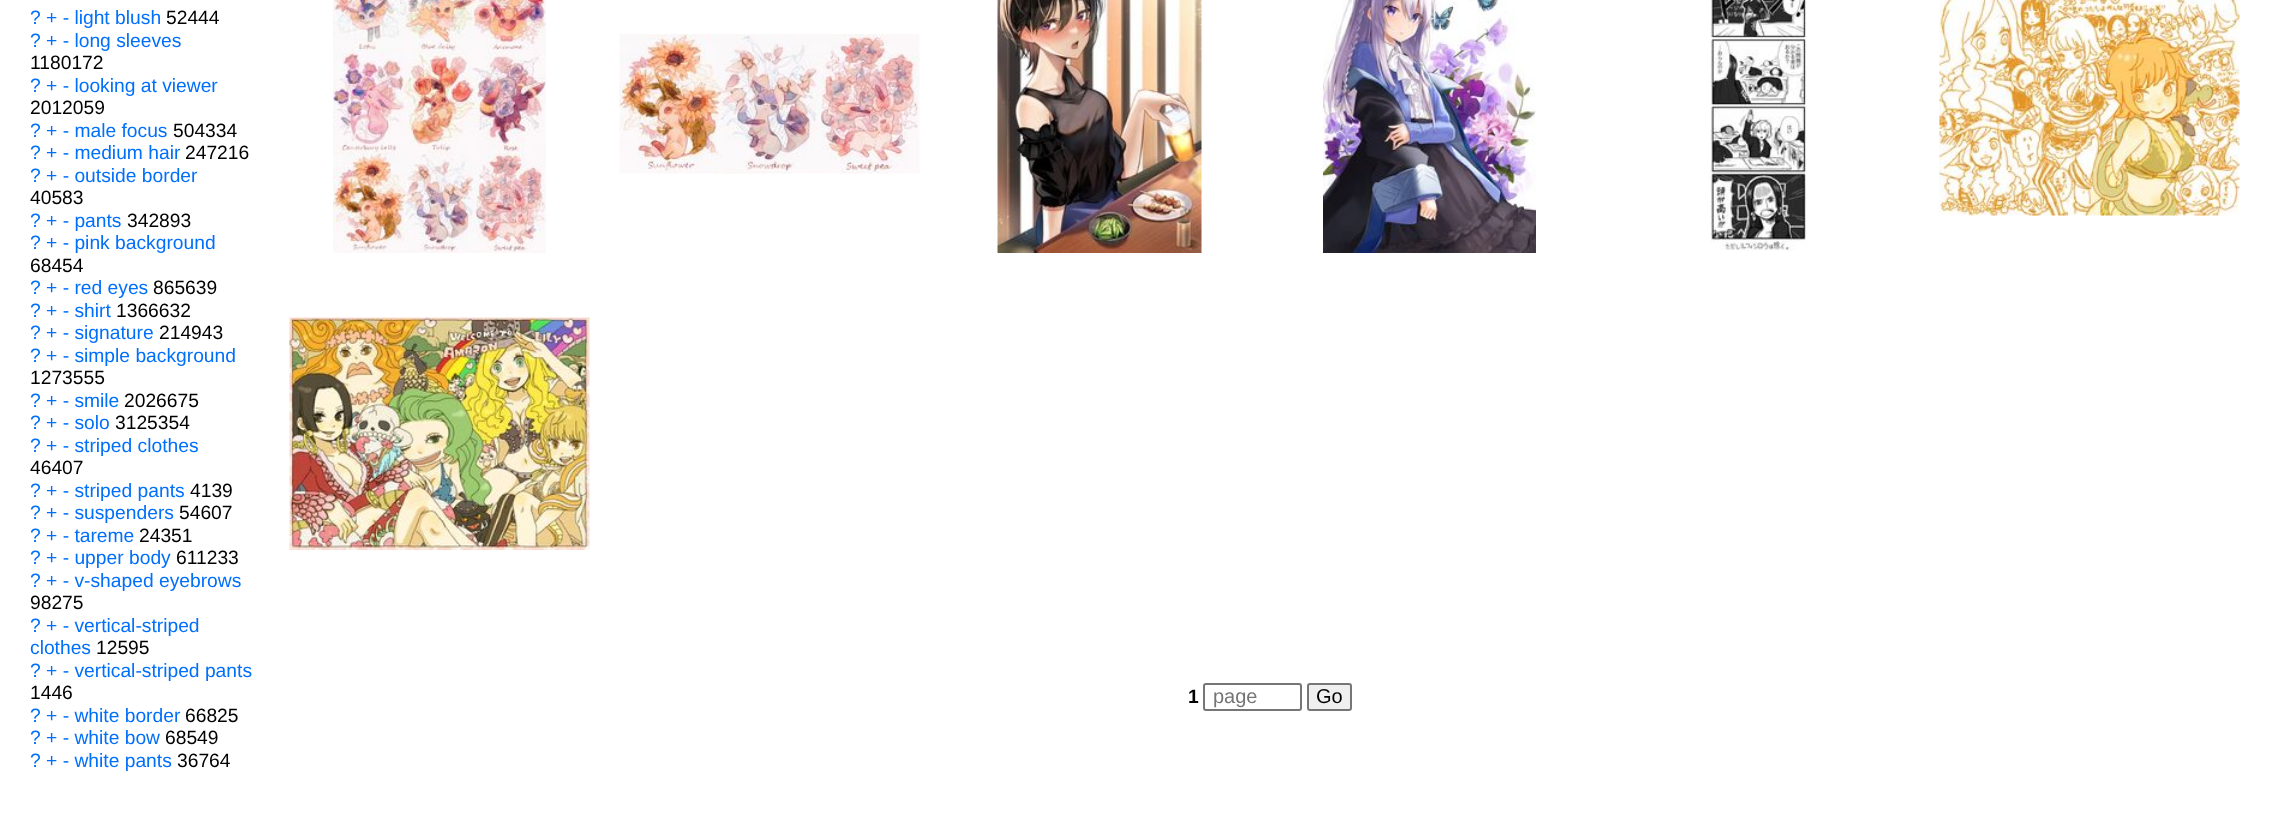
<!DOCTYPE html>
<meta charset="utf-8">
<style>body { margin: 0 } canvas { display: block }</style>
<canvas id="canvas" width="2294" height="835"></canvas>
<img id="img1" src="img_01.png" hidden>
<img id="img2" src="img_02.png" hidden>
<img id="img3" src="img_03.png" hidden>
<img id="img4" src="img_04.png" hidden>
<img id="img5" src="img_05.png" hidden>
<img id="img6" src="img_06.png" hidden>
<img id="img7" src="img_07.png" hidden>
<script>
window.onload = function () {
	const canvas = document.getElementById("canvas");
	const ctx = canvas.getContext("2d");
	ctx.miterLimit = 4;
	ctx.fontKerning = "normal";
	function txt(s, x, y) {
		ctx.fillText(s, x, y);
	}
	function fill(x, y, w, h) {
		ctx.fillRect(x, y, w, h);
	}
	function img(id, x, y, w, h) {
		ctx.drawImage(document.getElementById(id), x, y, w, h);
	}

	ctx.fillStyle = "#FFFFFF";
	fill(0, 0, 2294, 835);
	img("img1", 333, 0, 213, 253);
	img("img2", 619, 34, 301, 140);
	img("img3", 997, 0, 205, 253);
	img("img4", 1323, 0, 213, 253);
	img("img5", 1710, 0, 97, 251);
	img("img6", 1939, 0, 301, 216);
	img("img7", 289, 317, 301, 233);
	ctx.beginPath();
	ctx.roundRect(1204, 684, 97, 26, 2);
	ctx.strokeStyle = "#767676";
	ctx.lineWidth = 2;
	ctx.stroke();
	ctx.fillStyle = "#EFEFEF";
	ctx.beginPath();
	ctx.roundRect(1308, 684, 43, 26, 2);
	ctx.fill();
	ctx.stroke();
	ctx.font = "19.25px Liberation Sans";
	ctx.fillStyle = "#006FFA";
	txt("? + - light blush", 30, 24);
	ctx.fillStyle = "#000000";
	txt("52444", 166, 24);
	ctx.fillStyle = "#006FFA";
	txt("? + - long sleeves", 30, 47);
	ctx.fillStyle = "#000000";
	txt("1180172", 30, 69);
	ctx.fillStyle = "#006FFA";
	txt("? + - looking at viewer", 30, 92);
	ctx.fillStyle = "#000000";
	txt("2012059", 30, 114);
	ctx.fillStyle = "#006FFA";
	txt("? + - male focus", 30, 137);
	ctx.fillStyle = "#000000";
	txt("504334", 173, 137);
	ctx.fillStyle = "#006FFA";
	txt("? + - medium hair", 30, 159);
	ctx.fillStyle = "#000000";
	txt("247216", 185, 159);
	ctx.fillStyle = "#006FFA";
	txt("? + - outside border", 30, 182);
	ctx.fillStyle = "#000000";
	txt("40583", 30, 204);
	ctx.fillStyle = "#006FFA";
	txt("? + - pants", 30, 227);
	ctx.fillStyle = "#000000";
	txt("342893", 127, 227);
	ctx.fillStyle = "#006FFA";
	txt("? + - pink background", 30, 249);
	ctx.fillStyle = "#000000";
	txt("68454", 30, 272);
	ctx.fillStyle = "#006FFA";
	txt("? + - red eyes", 30, 294);
	ctx.fillStyle = "#000000";
	txt("865639", 153, 294);
	ctx.fillStyle = "#006FFA";
	txt("? + - shirt", 30, 317);
	ctx.fillStyle = "#000000";
	txt("1366632", 116, 317);
	ctx.fillStyle = "#006FFA";
	txt("? + - signature", 30, 339);
	ctx.fillStyle = "#000000";
	txt("214943", 159, 339);
	ctx.fillStyle = "#006FFA";
	txt("? + - simple background", 30, 362);
	ctx.fillStyle = "#000000";
	txt("1273555", 30, 384);
	ctx.fillStyle = "#006FFA";
	txt("? + - smile", 30, 407);
	ctx.fillStyle = "#000000";
	txt("2026675", 124, 407);
	ctx.fillStyle = "#006FFA";
	txt("? + - solo", 30, 429);
	ctx.fillStyle = "#000000";
	txt("3125354", 115, 429);
	ctx.fillStyle = "#006FFA";
	txt("? + - striped clothes", 30, 452);
	ctx.fillStyle = "#000000";
	txt("46407", 30, 474);
	ctx.fillStyle = "#006FFA";
	txt("? + - striped pants", 30, 497);
	ctx.fillStyle = "#000000";
	txt("4139", 190, 497);
	ctx.fillStyle = "#006FFA";
	txt("? + - suspenders", 30, 519);
	ctx.fillStyle = "#000000";
	txt("54607", 179, 519);
	ctx.fillStyle = "#006FFA";
	txt("? + - tareme", 30, 542);
	ctx.fillStyle = "#000000";
	txt("24351", 139, 542);
	ctx.fillStyle = "#006FFA";
	txt("? + - upper body", 30, 564);
	ctx.fillStyle = "#000000";
	txt("611233", 176, 564);
	ctx.fillStyle = "#006FFA";
	txt("? + - v-shaped eyebrows", 30, 587);
	ctx.fillStyle = "#000000";
	txt("98275", 30, 609);
	ctx.fillStyle = "#006FFA";
	txt("? + - vertical-striped", 30, 632);
	txt("clothes", 30, 654);
	ctx.fillStyle = "#000000";
	txt("12595", 96, 654);
	ctx.fillStyle = "#006FFA";
	txt("? + - vertical-striped pants", 30, 677);
	ctx.fillStyle = "#000000";
	txt("1446", 30, 699);
	ctx.fillStyle = "#006FFA";
	txt("? + - white border", 30, 722);
	ctx.fillStyle = "#000000";
	txt("66825", 185, 722);
	ctx.fillStyle = "#006FFA";
	txt("? + - white bow", 30, 744);
	ctx.fillStyle = "#000000";
	txt("68549", 165, 744);
	ctx.fillStyle = "#006FFA";
	txt("? + - white pants", 30, 767);
	ctx.fillStyle = "#000000";
	txt("36764", 177, 767);
	ctx.font = "bold 19.25px Liberation Sans";
	txt("1", 1188, 703);
	ctx.font = "20px Liberation Sans";
	ctx.fillStyle = "#757575";
	txt("page", 1213, 703);
	ctx.fillStyle = "#000000";
	txt("Go", 1316, 703);
};
</script>
